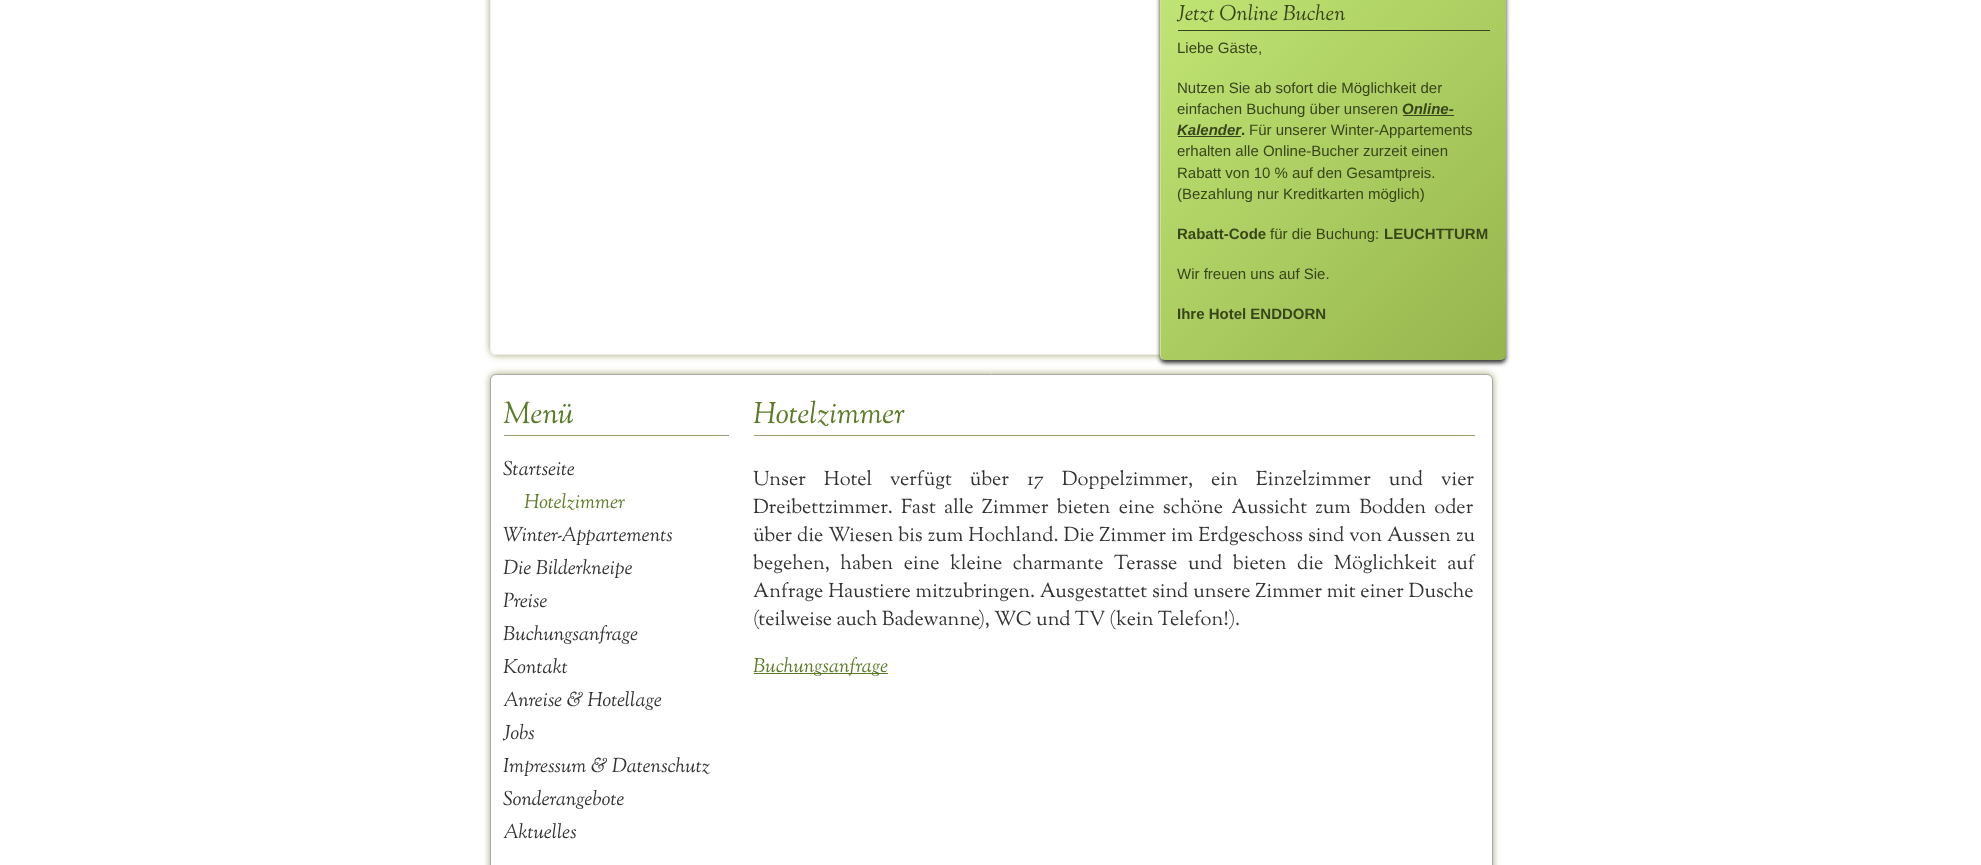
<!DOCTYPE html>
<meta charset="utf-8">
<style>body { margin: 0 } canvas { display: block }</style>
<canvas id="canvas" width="1981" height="865"></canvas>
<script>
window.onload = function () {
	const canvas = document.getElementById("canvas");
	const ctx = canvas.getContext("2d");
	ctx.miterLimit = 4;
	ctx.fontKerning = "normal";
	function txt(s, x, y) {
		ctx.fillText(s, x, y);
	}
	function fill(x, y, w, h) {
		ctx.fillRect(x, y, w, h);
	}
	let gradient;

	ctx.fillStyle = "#FFFFFF";
	fill(0, 0, 1981, 865);
	ctx.save();
	ctx.beginPath();
	ctx.moveTo(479, 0);
	ctx.lineTo(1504, 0);
	ctx.lineTo(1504, 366);
	ctx.lineTo(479, 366);
	ctx.closePath();
	ctx.moveTo(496, -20);
	ctx.lineTo(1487, -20);
	ctx.bezierCurveTo(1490.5, -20, 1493, -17.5, 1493, -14);
	ctx.lineTo(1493, 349);
	ctx.bezierCurveTo(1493, 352.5, 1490.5, 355, 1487, 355);
	ctx.lineTo(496, 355);
	ctx.bezierCurveTo(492.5, 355, 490, 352.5, 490, 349);
	ctx.lineTo(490, -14);
	ctx.bezierCurveTo(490, -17.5, 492.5, -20, 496, -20);
	ctx.closePath();
	ctx.clip("evenodd");
	ctx.fillStyle = "#B9B893";
	ctx.filter = "blur(3px)";
	ctx.beginPath();
	ctx.roundRect(489, -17, 1005, 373, 8);
	ctx.fill();
	ctx.filter = "none";
	ctx.restore();
	ctx.beginPath();
	ctx.roundRect(490.5, -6.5, 1002, 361, 5.5);
	ctx.strokeStyle = "#EEEEEE";
	ctx.stroke();
	ctx.fillStyle = "#333333";
	ctx.filter = "blur(2px)";
	ctx.beginPath();
	ctx.roundRect(1160, -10, 346, 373, 5);
	ctx.fill();
	ctx.filter = "none";
	ctx.save();
	ctx.beginPath();
	ctx.roundRect(1160, -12, 346, 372, 5);
	ctx.clip();
	gradient = ctx.createLinearGradient(1155, -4.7, 1513, 353);
	gradient.addColorStop(0, "#C1E575");
	gradient.addColorStop(1, "#96B54D");
	ctx.fillStyle = gradient;
	ctx.beginPath();
	ctx.moveTo(1161, -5);
	ctx.lineTo(1506, -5);
	ctx.lineTo(1506, 355);
	ctx.bezierCurveTo(1506, 358, 1504, 360, 1501, 360);
	ctx.lineTo(1161, 360);
	ctx.closePath();
	ctx.fill();
	ctx.restore();
	ctx.fillStyle = "#CBE589";
	ctx.beginPath();
	ctx.moveTo(1165, -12);
	ctx.lineTo(1501, -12);
	ctx.bezierCurveTo(1504, -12, 1506, -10, 1506, -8);
	ctx.lineTo(1506, 355);
	ctx.bezierCurveTo(1506, 358, 1504, 360, 1501, 360);
	ctx.lineTo(1165, 360);
	ctx.bezierCurveTo(1162, 360, 1160, 358, 1160, 355);
	ctx.lineTo(1160, -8);
	ctx.bezierCurveTo(1160, -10, 1162, -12, 1165, -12);
	ctx.closePath();
	ctx.moveTo(1165, -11);
	ctx.lineTo(1501, -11);
	ctx.bezierCurveTo(1504, -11, 1506, -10, 1506, -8);
	ctx.lineTo(1506, 355);
	ctx.bezierCurveTo(1506, 358, 1504, 360, 1501, 360);
	ctx.lineTo(1165, 360);
	ctx.bezierCurveTo(1163, 360, 1161, 358, 1161, 355);
	ctx.lineTo(1161, -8);
	ctx.bezierCurveTo(1161, -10, 1163, -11, 1165, -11);
	ctx.closePath();
	ctx.fill("evenodd");
	ctx.fillStyle = "#38441B";
	fill(1178, 30, 312, 1);
	fill(1403, 115, 51, 1);
	fill(1178, 136, 63, 1);
	ctx.fillStyle = "#B9B893";
	ctx.filter = "blur(3px)";
	ctx.beginPath();
	ctx.roundRect(489, 373, 1005, 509, 8);
	ctx.fill();
	ctx.filter = "none";
	ctx.fillStyle = "#FFFFFF";
	ctx.beginPath();
	ctx.roundRect(490.5, 374.5, 1002, 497, 5.5);
	ctx.fill();
	ctx.strokeStyle = "#AAAAAA";
	ctx.stroke();
	ctx.fillStyle = "#9C9A70";
	fill(504, 435, 225, 1);
	fill(754, 435, 721, 1);
	ctx.fillStyle = "#5B7C26";
	fill(754, 673, 134, 1);
	ctx.font = "italic 21.25px Sorts Mill Goudy";
	ctx.fillStyle = "#38441B";
	txt("Jetzt Online Buchen", 1177, 20);
	ctx.font = "15px Liberation Sans";
	txt("Liebe Gäste,", 1177, 53);
	txt("Nutzen Sie ab sofort die Möglichkeit der", 1177, 93);
	txt("einfachen Buchung über unseren", 1177, 114);
	ctx.font = "italic bold 15px Liberation Sans";
	txt("Online-", 1402, 114);
	txt("Kalender", 1177, 135);
	ctx.font = "bold 15px Liberation Sans";
	txt(".", 1241, 135);
	ctx.font = "15px Liberation Sans";
	txt("Für unserer Winter-Appartements", 1249, 135);
	txt("erhalten alle Online-Bucher zurzeit einen", 1177, 156);
	txt("Rabatt von 10 % auf den Gesamtpreis.", 1177, 178);
	txt("(Bezahlung nur Kreditkarten möglich)", 1177, 199);
	ctx.font = "bold 15px Liberation Sans";
	txt("Rabatt-Code", 1177, 239);
	ctx.font = "15px Liberation Sans";
	txt("für die Buchung:", 1270, 239);
	ctx.font = "bold 15px Liberation Sans";
	txt("LEUCHTTURM", 1384, 239);
	ctx.font = "15px Liberation Sans";
	txt("Wir freuen uns auf Sie.", 1177, 279);
	ctx.font = "bold 15px Liberation Sans";
	txt("Ihre Hotel ENDDORN", 1177, 319);
	ctx.font = "italic 30px Sorts Mill Goudy";
	ctx.fillStyle = "#5B7C26";
	txt("Menü", 503, 423);
	ctx.font = "italic 20px Sorts Mill Goudy";
	ctx.fillStyle = "#333333";
	txt("Startseite", 503, 475);
	ctx.fillStyle = "#5B7C26";
	txt("Hotelzimmer", 524, 508);
	ctx.fillStyle = "#333333";
	txt("Winter-Appartements", 503, 541);
	txt("Die Bilderkneipe", 503, 574);
	txt("Preise", 503, 607);
	txt("Buchungsanfrage", 503, 640);
	txt("Kontakt", 503, 673);
	txt("Anreise & Hotellage", 503, 706);
	txt("Jobs", 503, 739);
	txt("Impressum & Datenschutz", 503, 772);
	txt("Sonderangebote", 503, 805);
	txt("Aktuelles", 503, 838);
	ctx.font = "italic 30px Sorts Mill Goudy";
	ctx.fillStyle = "#5B7C26";
	txt("Hotelzimmer", 753, 423);
	ctx.wordSpacing = "13.75px";
	ctx.font = "20px Sorts Mill Goudy";
	ctx.fillStyle = "#333333";
	txt("Unser Hotel verfügt über 17 Doppelzimmer, ein Einzelzimmer und vier", 753, 485);
	ctx.wordSpacing = "4px";
	txt("Dreibettzimmer. Fast alle Zimmer bieten eine schöne Aussicht zum Bodden oder", 753, 513);
	ctx.wordSpacing = "0.75px";
	txt("über die Wiesen bis zum Hochland. Die Zimmer im Erdgeschoss sind von Aussen zu", 753, 541);
	ctx.wordSpacing = "6.25px";
	txt("begehen, haben eine kleine charmante Terasse und bieten die Möglichkeit auf", 753, 569);
	ctx.wordSpacing = "0.5px";
	txt("Anfrage Haustiere mitzubringen. Ausgestattet sind unsere Zimmer mit einer Dusche", 753, 597);
	ctx.wordSpacing = "0px";
	txt("(teilweise auch Badewanne), WC und TV (kein Telefon!).", 753, 625);
	ctx.font = "italic 20px Sorts Mill Goudy";
	ctx.fillStyle = "#5B7C26";
	txt("Buchungsanfrage", 753, 672);
};
</script>
